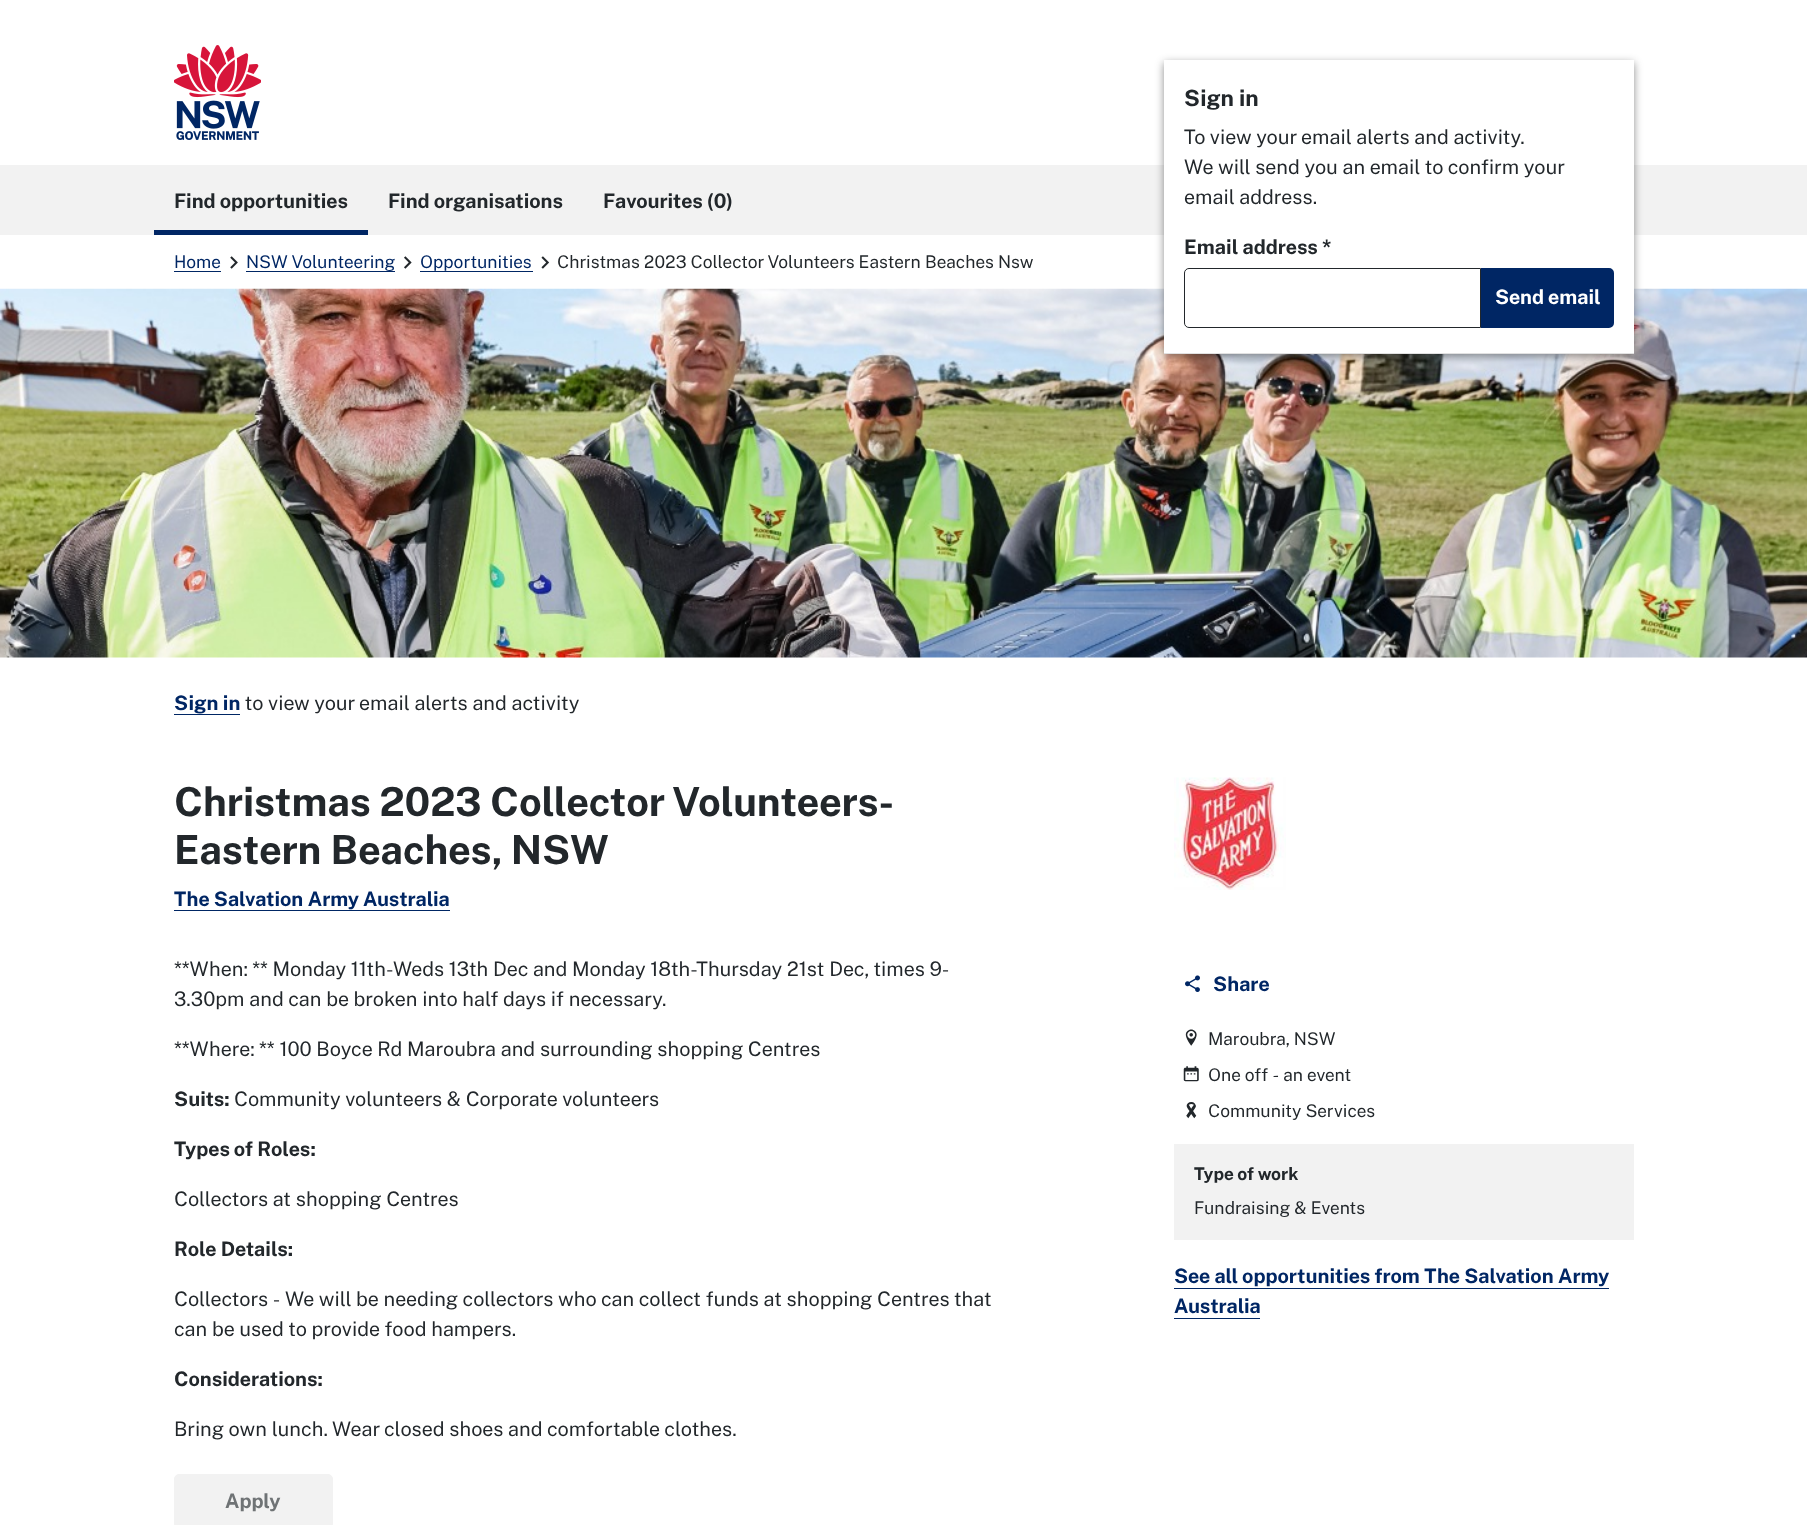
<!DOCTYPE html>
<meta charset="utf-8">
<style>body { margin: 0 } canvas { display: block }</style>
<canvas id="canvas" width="1807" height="1525"></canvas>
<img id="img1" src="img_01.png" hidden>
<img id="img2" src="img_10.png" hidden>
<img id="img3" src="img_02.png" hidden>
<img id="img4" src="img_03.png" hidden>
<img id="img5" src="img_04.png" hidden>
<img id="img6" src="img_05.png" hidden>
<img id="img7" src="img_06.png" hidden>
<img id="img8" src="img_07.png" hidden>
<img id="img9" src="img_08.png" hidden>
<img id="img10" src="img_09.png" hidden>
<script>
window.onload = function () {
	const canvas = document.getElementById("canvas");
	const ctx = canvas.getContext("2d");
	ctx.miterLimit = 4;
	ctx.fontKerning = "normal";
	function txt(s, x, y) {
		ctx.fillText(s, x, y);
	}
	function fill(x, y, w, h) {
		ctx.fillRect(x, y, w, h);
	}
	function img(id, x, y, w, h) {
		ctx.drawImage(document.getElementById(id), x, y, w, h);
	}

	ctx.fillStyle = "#FFFFFF";
	fill(0, 0, 1807, 1525);
	img("img1", 174, 45, 87, 95);
	img("img2", 0, 288, 1807, 370);
	ctx.fillStyle = "#F2F2F2";
	fill(0, 165, 1807, 70);
	ctx.fillStyle = "rgba(28, 28, 28, 0.5)";
	ctx.filter = "blur(4px)";
	ctx.beginPath();
	ctx.rect(1164, 63, 470, 293);
	ctx.fill();
	ctx.filter = "none";
	ctx.fillStyle = "#FFFFFF";
	fill(1164, 60, 470, 293);
	ctx.fillStyle = "#E1E1E1";
	fill(1164, 353, 470, 1);
	ctx.beginPath();
	ctx.roundRect(1184.5, 268.5, 296, 59, [4.5, 0, 0, 4.5]);
	ctx.strokeStyle = "#22272B";
	ctx.stroke();
	ctx.fillStyle = "#002664";
	ctx.beginPath();
	ctx.roundRect(1482.5, 269.5, 130, 57, [0, 3.5, 3.5, 0]);
	ctx.fill();
	ctx.strokeStyle = "#002664";
	ctx.lineWidth = 3;
	ctx.stroke();
	fill(174, 714, 66, 1);
	fill(174, 910, 276, 1);
	img("img3", 1174, 777, 112, 113);
	ctx.fillStyle = "#F2F2F2";
	ctx.beginPath();
	ctx.roundRect(174.5, 1474.5, 158, 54, 4.5);
	ctx.fill();
	ctx.strokeStyle = "#F2F2F2";
	ctx.lineWidth = 1;
	ctx.stroke();
	img("img4", 1185, 975, 15, 17);
	img("img5", 1185, 1029, 12, 17);
	img("img6", 1183, 1066, 16, 16);
	img("img7", 1186, 1102, 11, 17);
	fill(1174, 1144, 460, 96);
	ctx.fillStyle = "#002664";
	fill(1174, 1288, 435, 1);
	fill(1174, 1318, 86, 1);
	fill(174, 271, 47, 1);
	img("img8", 230, 256, 8, 13);
	fill(246, 271, 149, 1);
	img("img9", 404, 256, 8, 13);
	fill(420, 271, 113, 1);
	img("img10", 541, 256, 9, 13);
	fill(154, 230, 214, 5);
	ctx.font = "bold 22.5px Public Sans";
	ctx.fillStyle = "#22272B";
	txt("Sign in", 1184, 106);
	ctx.font = "20px Public Sans";
	txt("To view your email alerts and activity.", 1184, 144);
	txt("We will send you an email to confirm your", 1184, 174);
	txt("email address.", 1184, 204);
	ctx.font = "bold 20px Public Sans";
	txt("Email address", 1184, 254);
	txt("*", 1322, 254);
	ctx.fillStyle = "#FFFFFF";
	txt("Send email", 1495, 304);
	ctx.fillStyle = "#002664";
	txt("Sign in", 174, 710);
	ctx.font = "20px Public Sans";
	ctx.fillStyle = "#22272B";
	txt("to view your email alerts and activity", 245, 710);
	ctx.font = "bold 40px Public Sans";
	txt("Christmas 2023 Collector Volunteers-", 174, 816);
	txt("Eastern Beaches, NSW", 174, 864);
	ctx.font = "bold 20px Public Sans";
	ctx.fillStyle = "#002664";
	txt("The Salvation Army Australia", 174, 906);
	ctx.font = "20px Public Sans";
	ctx.fillStyle = "#22272B";
	txt("**When: ** Monday 11th-Weds 13th Dec and Monday 18th-Thursday 21st Dec, times 9-", 174, 976);
	txt("3.30pm and can be broken into half days if necessary.", 174, 1006);
	txt("**Where: ** 100 Boyce Rd Maroubra and surrounding shopping Centres", 174, 1056);
	ctx.font = "bold 20px Public Sans";
	txt("Suits:", 174, 1106);
	ctx.font = "20px Public Sans";
	txt("Community volunteers & Corporate volunteers", 234, 1106);
	ctx.font = "bold 20px Public Sans";
	txt("Types of Roles:", 174, 1156);
	ctx.font = "20px Public Sans";
	txt("Collectors at shopping Centres", 174, 1206);
	ctx.font = "bold 20px Public Sans";
	txt("Role Details:", 174, 1256);
	ctx.font = "20px Public Sans";
	txt("Collectors - We will be needing collectors who can collect funds at shopping Centres that", 174, 1306);
	txt("can be used to provide food hampers.", 174, 1336);
	ctx.font = "bold 20px Public Sans";
	txt("Considerations:", 174, 1386);
	ctx.font = "20px Public Sans";
	txt("Bring own lunch. Wear closed shoes and comfortable clothes.", 174, 1436);
	ctx.font = "bold 20px Public Sans";
	ctx.fillStyle = "#6F7375";
	txt("Apply", 225, 1508);
	ctx.fillStyle = "#002664";
	txt("Share", 1213, 991);
	ctx.font = "17.5px Public Sans";
	ctx.fillStyle = "#22272B";
	txt("Maroubra, NSW", 1208, 1045);
	txt("One off - an event", 1208, 1081);
	txt("Community Services", 1208, 1117);
	ctx.font = "bold 17.5px Public Sans";
	txt("Type of work", 1194, 1180);
	ctx.font = "17.5px Public Sans";
	txt("Fundraising & Events", 1194, 1214);
	ctx.font = "bold 20px Public Sans";
	ctx.fillStyle = "#002664";
	txt("See all opportunities from The Salvation Army", 1174, 1283);
	txt("Australia", 1174, 1313);
	ctx.font = "17.5px Public Sans";
	txt("Home", 174, 268);
	txt("NSW Volunteering", 246, 268);
	txt("Opportunities", 420, 268);
	ctx.fillStyle = "#22272B";
	txt("Christmas 2023 Collector Volunteers Eastern Beaches Nsw", 557, 268);
	ctx.font = "bold 20px Public Sans";
	txt("Find opportunities", 174, 208);
	txt("Find organisations", 388, 208);
	txt("Favourites (0)", 603, 208);
};
</script>
